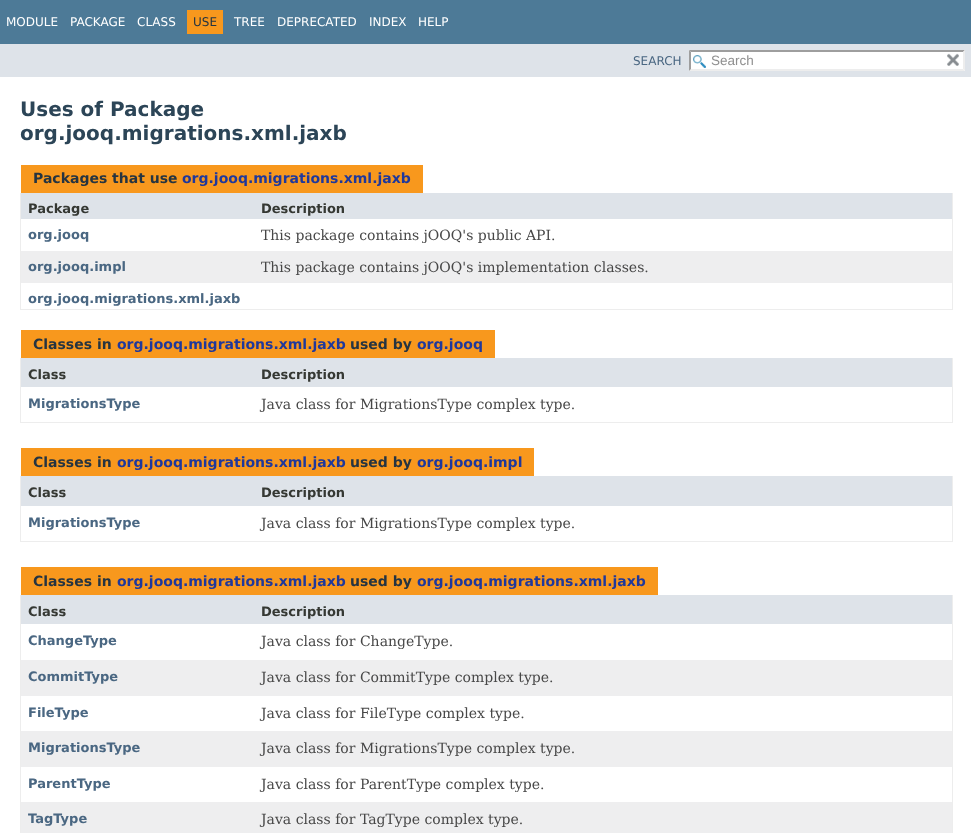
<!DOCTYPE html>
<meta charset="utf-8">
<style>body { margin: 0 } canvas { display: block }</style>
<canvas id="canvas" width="971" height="833"></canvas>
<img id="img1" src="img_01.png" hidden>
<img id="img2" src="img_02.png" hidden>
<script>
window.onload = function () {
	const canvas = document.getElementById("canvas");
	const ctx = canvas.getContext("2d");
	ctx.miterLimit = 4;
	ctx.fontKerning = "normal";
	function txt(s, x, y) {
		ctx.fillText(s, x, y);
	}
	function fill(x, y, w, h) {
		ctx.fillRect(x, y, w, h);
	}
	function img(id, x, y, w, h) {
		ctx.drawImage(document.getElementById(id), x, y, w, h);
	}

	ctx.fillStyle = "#FFFFFF";
	fill(0, 0, 971, 833);
	ctx.fillStyle = "#4D7A97";
	fill(0, 0, 971, 44);
	ctx.fillStyle = "#F8981D";
	fill(187, 10, 36, 24);
	ctx.fillStyle = "#DEE3E9";
	fill(0, 44, 971, 33);
	ctx.fillStyle = "#FFFFFF";
	fill(689, 50, 276, 21);
	img("img1", 693, 55, 13, 13);
	ctx.fillStyle = "#9E9E9E";
	ctx.beginPath();
	ctx.moveTo(689, 50);
	ctx.lineTo(965, 50);
	ctx.lineTo(963, 52);
	ctx.lineTo(691, 52);
	ctx.closePath();
	ctx.fill();
	ctx.fillStyle = "#EDEDED";
	ctx.beginPath();
	ctx.moveTo(965, 50);
	ctx.lineTo(965, 71);
	ctx.lineTo(963, 69);
	ctx.lineTo(963, 52);
	ctx.closePath();
	ctx.fill();
	ctx.beginPath();
	ctx.moveTo(965, 71);
	ctx.lineTo(689, 71);
	ctx.lineTo(691, 69);
	ctx.lineTo(963, 69);
	ctx.closePath();
	ctx.fill();
	ctx.fillStyle = "#9E9E9E";
	ctx.beginPath();
	ctx.moveTo(689, 71);
	ctx.lineTo(689, 50);
	ctx.lineTo(691, 52);
	ctx.lineTo(691, 69);
	ctx.closePath();
	ctx.fill();
	img("img2", 947, 53, 12, 13);
	ctx.fillStyle = "#F8981D";
	fill(21, 165, 402, 28);
	ctx.fillStyle = "#EDEDED";
	fill(952, 193, 1, 117);
	fill(20, 309, 933, 1);
	fill(20, 193, 1, 117);
	ctx.fillStyle = "#DEE3E9";
	fill(21, 193, 931, 26);
	ctx.fillStyle = "#EEEEEF";
	fill(21, 251, 931, 32);
	ctx.fillStyle = "#F8981D";
	fill(21, 330, 474, 28);
	ctx.fillStyle = "#EDEDED";
	fill(952, 358, 1, 65);
	fill(20, 422, 933, 1);
	fill(20, 358, 1, 65);
	ctx.fillStyle = "#DEE3E9";
	fill(21, 358, 931, 29);
	ctx.fillStyle = "#F8981D";
	fill(21, 448, 513, 28);
	ctx.fillStyle = "#EDEDED";
	fill(952, 476, 1, 66);
	fill(20, 541, 933, 1);
	fill(20, 476, 1, 66);
	ctx.fillStyle = "#DEE3E9";
	fill(21, 476, 931, 30);
	ctx.fillStyle = "#F8981D";
	fill(21, 567, 637, 28);
	ctx.fillStyle = "#EDEDED";
	fill(952, 595, 1, 238);
	fill(20, 595, 1, 238);
	ctx.fillStyle = "#DEE3E9";
	fill(21, 595, 931, 29);
	ctx.fillStyle = "#EEEEEF";
	fill(21, 660, 931, 36);
	fill(21, 731, 931, 36);
	fill(21, 802, 931, 31);
	ctx.font = "12px DejaVu Sans";
	ctx.fillStyle = "#FFFFFF";
	txt("MODULE", 6, 26);
	txt("PACKAGE", 70, 26);
	txt("CLASS", 137, 26);
	ctx.fillStyle = "#253441";
	txt("USE", 193, 26);
	ctx.fillStyle = "#FFFFFF";
	txt("TREE", 234, 26);
	txt("DEPRECATED", 277, 26);
	txt("INDEX", 369, 26);
	txt("HELP", 418, 26);
	ctx.fillStyle = "#4A6782";
	txt("SEARCH", 633, 65);
	ctx.font = "13.5px Liberation Sans";
	ctx.fillStyle = "#909090";
	txt("Search", 711, 65);
	ctx.font = "bold 20px DejaVu Sans";
	ctx.fillStyle = "#2C4557";
	txt("Uses of Package", 20, 116);
	txt("org.jooq.migrations.xml.jaxb", 20, 140);
	ctx.font = "bold 14px DejaVu Sans";
	ctx.fillStyle = "#253441";
	txt("Packages that use", 33, 183);
	ctx.fillStyle = "#1F389C";
	txt("org.jooq.migrations.xml.jaxb", 182, 183);
	ctx.font = "bold 13px DejaVu Sans";
	ctx.fillStyle = "#353833";
	txt("Package", 28, 213);
	txt("Description", 261, 213);
	ctx.fillStyle = "#4A6782";
	txt("org.jooq", 28, 239);
	ctx.font = "14px DejaVu Serif";
	ctx.fillStyle = "#474747";
	txt("This package contains jOOQ's public API.", 261, 240);
	ctx.font = "bold 13px DejaVu Sans";
	ctx.fillStyle = "#4A6782";
	txt("org.jooq.impl", 28, 271);
	ctx.font = "14px DejaVu Serif";
	ctx.fillStyle = "#474747";
	txt("This package contains jOOQ's implementation classes.", 261, 272);
	ctx.font = "bold 13px DejaVu Sans";
	ctx.fillStyle = "#4A6782";
	txt("org.jooq.migrations.xml.jaxb", 28, 303);
	ctx.font = "bold 14px DejaVu Sans";
	ctx.fillStyle = "#253441";
	txt("Classes in", 33, 349);
	ctx.fillStyle = "#1F389C";
	txt("org.jooq.migrations.xml.jaxb", 117, 349);
	ctx.fillStyle = "#253441";
	txt("used by", 350, 349);
	ctx.fillStyle = "#1F389C";
	txt("org.jooq", 417, 349);
	ctx.font = "bold 13px DejaVu Sans";
	ctx.fillStyle = "#353833";
	txt("Class", 28, 379);
	txt("Description", 261, 379);
	ctx.fillStyle = "#4A6782";
	txt("MigrationsType", 28, 408);
	ctx.font = "14px DejaVu Serif";
	ctx.fillStyle = "#474747";
	txt("Java class for MigrationsType complex type.", 261, 409);
	ctx.font = "bold 14px DejaVu Sans";
	ctx.fillStyle = "#253441";
	txt("Classes in", 33, 467);
	ctx.fillStyle = "#1F389C";
	txt("org.jooq.migrations.xml.jaxb", 117, 467);
	ctx.fillStyle = "#253441";
	txt("used by", 350, 467);
	ctx.fillStyle = "#1F389C";
	txt("org.jooq.impl", 417, 467);
	ctx.font = "bold 13px DejaVu Sans";
	ctx.fillStyle = "#353833";
	txt("Class", 28, 497);
	txt("Description", 261, 497);
	ctx.fillStyle = "#4A6782";
	txt("MigrationsType", 28, 527);
	ctx.font = "14px DejaVu Serif";
	ctx.fillStyle = "#474747";
	txt("Java class for MigrationsType complex type.", 261, 528);
	ctx.font = "bold 14px DejaVu Sans";
	ctx.fillStyle = "#253441";
	txt("Classes in", 33, 586);
	ctx.fillStyle = "#1F389C";
	txt("org.jooq.migrations.xml.jaxb", 117, 586);
	ctx.fillStyle = "#253441";
	txt("used by", 350, 586);
	ctx.fillStyle = "#1F389C";
	txt("org.jooq.migrations.xml.jaxb", 417, 586);
	ctx.font = "bold 13px DejaVu Sans";
	ctx.fillStyle = "#353833";
	txt("Class", 28, 616);
	txt("Description", 261, 616);
	ctx.fillStyle = "#4A6782";
	txt("ChangeType", 28, 645);
	ctx.font = "14px DejaVu Serif";
	ctx.fillStyle = "#474747";
	txt("Java class for ChangeType.", 261, 646);
	ctx.font = "bold 13px DejaVu Sans";
	ctx.fillStyle = "#4A6782";
	txt("CommitType", 28, 681);
	ctx.font = "14px DejaVu Serif";
	ctx.fillStyle = "#474747";
	txt("Java class for CommitType complex type.", 261, 682);
	ctx.font = "bold 13px DejaVu Sans";
	ctx.fillStyle = "#4A6782";
	txt("FileType", 28, 717);
	ctx.font = "14px DejaVu Serif";
	ctx.fillStyle = "#474747";
	txt("Java class for FileType complex type.", 261, 718);
	ctx.font = "bold 13px DejaVu Sans";
	ctx.fillStyle = "#4A6782";
	txt("MigrationsType", 28, 752);
	ctx.font = "14px DejaVu Serif";
	ctx.fillStyle = "#474747";
	txt("Java class for MigrationsType complex type.", 261, 753);
	ctx.font = "bold 13px DejaVu Sans";
	ctx.fillStyle = "#4A6782";
	txt("ParentType", 28, 788);
	ctx.font = "14px DejaVu Serif";
	ctx.fillStyle = "#474747";
	txt("Java class for ParentType complex type.", 261, 789);
	ctx.font = "bold 13px DejaVu Sans";
	ctx.fillStyle = "#4A6782";
	txt("TagType", 28, 823);
	ctx.font = "14px DejaVu Serif";
	ctx.fillStyle = "#474747";
	txt("Java class for TagType complex type.", 261, 824);
};
</script>
